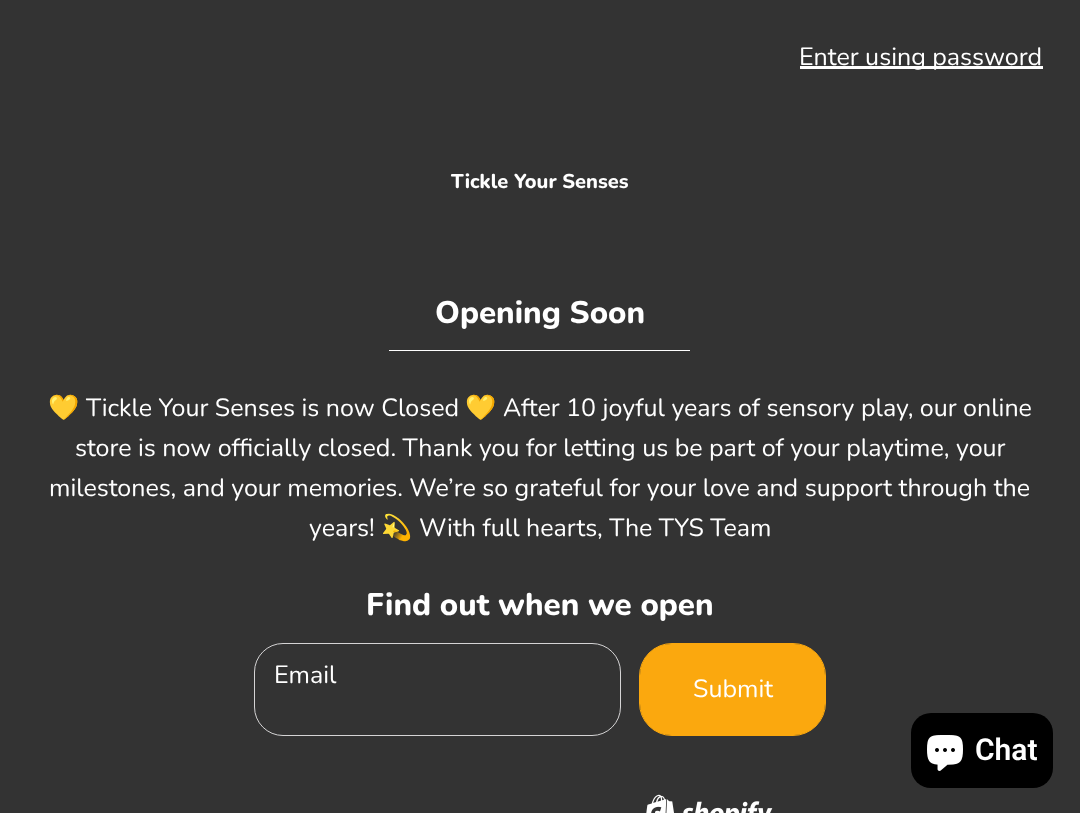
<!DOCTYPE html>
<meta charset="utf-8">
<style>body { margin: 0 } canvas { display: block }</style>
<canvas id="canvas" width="1080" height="813"></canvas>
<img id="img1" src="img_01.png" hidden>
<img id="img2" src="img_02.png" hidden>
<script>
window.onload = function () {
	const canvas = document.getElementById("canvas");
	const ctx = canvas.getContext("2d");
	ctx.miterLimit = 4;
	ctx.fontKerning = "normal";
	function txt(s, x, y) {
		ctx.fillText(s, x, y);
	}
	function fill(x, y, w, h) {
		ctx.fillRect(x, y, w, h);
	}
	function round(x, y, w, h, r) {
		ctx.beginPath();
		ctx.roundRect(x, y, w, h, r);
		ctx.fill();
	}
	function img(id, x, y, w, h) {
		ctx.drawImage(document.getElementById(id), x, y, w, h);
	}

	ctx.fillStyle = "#333333";
	fill(0, 0, 1080, 813);
	ctx.fillStyle = "#FFFFFF";
	fill(800, 66, 243, 3);
	fill(389, 350, 301, 1);
	ctx.beginPath();
	ctx.roundRect(254.5, 643.5, 366, 92, 28.5);
	ctx.strokeStyle = "#D5D4D5";
	ctx.stroke();
	ctx.beginPath();
	ctx.roundRect(639.5, 643.5, 186, 92, 32.5);
	ctx.strokeStyle = "#FBA80E";
	ctx.stroke();
	ctx.fillStyle = "#FBA80E";
	round(640, 644, 185, 91, 31);
	img("img1", 646, 794, 127, 19);
	ctx.fillStyle = "#000000";
	round(911, 713, 142, 75, 20);
	img("img2", 927, 735, 36, 36);
	ctx.font = "25px Nunito";
	ctx.fillStyle = "#FFFFFF";
	txt("Enter using password", 799, 65);
	ctx.font = "800 20px Nunito";
	txt("Tickle Your Senses", 451, 188);
	ctx.font = "800 31.25px Nunito";
	txt("Opening Soon", 435, 323);
	ctx.font = "25px Noto Color Emoji";
	txt("💛", 48, 416);
	ctx.font = "25px Nunito";
	txt("Tickle Your Senses is now Closed", 86, 416);
	ctx.font = "25px Noto Color Emoji";
	txt("💛", 465, 416);
	ctx.font = "25px Nunito";
	txt("After 10 joyful years of sensory play, our online", 503, 416);
	txt("store is now officially closed. Thank you for letting us be part of your playtime, your", 75, 456);
	txt("milestones, and your memories. We’re so grateful for your love and support through the", 49, 496);
	txt("years!", 309, 536);
	ctx.font = "25px Noto Color Emoji";
	txt("💫", 381, 536);
	ctx.font = "25px Nunito";
	txt("With full hearts, The TYS Team", 419, 536);
	ctx.font = "800 31.25px Nunito";
	txt("Find out when we open", 366, 615);
	ctx.font = "25px Nunito";
	txt("Email", 274, 683);
	txt("Submit", 693, 697);
	ctx.font = "600 30px Roboto";
	txt("Chat", 975, 760);
};
</script>
